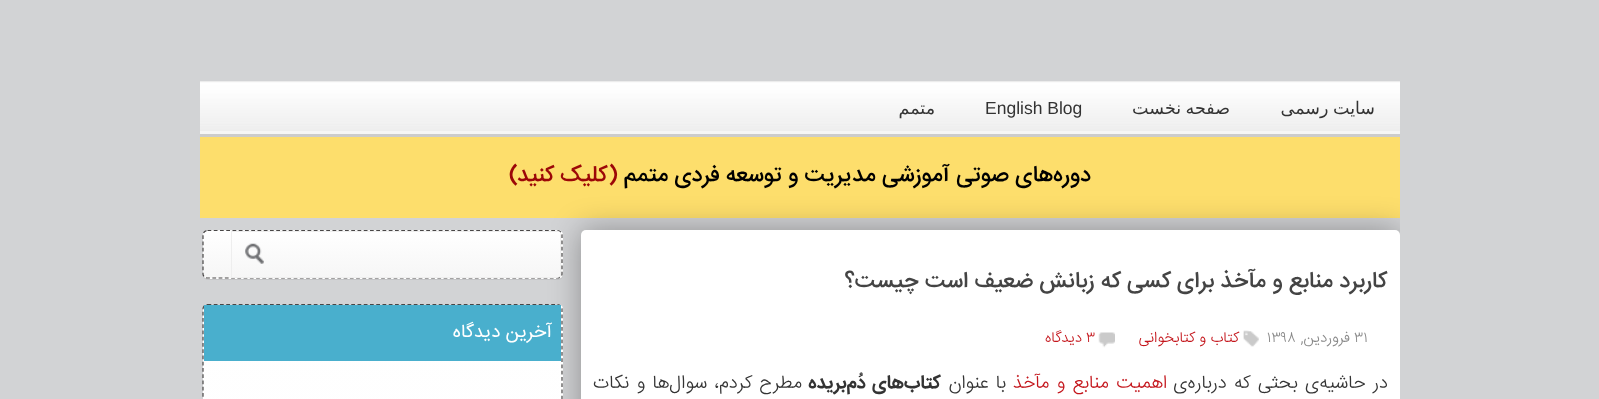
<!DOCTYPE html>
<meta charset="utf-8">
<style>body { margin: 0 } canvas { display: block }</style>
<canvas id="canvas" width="1599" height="399"></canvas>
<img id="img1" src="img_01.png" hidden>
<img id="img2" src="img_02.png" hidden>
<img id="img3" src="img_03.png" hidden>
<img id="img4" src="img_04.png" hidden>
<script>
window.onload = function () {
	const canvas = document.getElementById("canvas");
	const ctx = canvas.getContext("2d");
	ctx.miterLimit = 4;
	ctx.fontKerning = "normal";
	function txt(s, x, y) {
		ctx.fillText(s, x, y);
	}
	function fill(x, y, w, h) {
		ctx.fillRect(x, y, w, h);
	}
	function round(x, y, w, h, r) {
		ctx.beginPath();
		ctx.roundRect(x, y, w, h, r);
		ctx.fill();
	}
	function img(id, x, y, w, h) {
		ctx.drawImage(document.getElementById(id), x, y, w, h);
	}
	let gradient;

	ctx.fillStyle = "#D2D3D5";
	fill(0, 0, 1599, 399);
	ctx.fillStyle = "#F6F6F6";
	fill(200, 82, 1200, 52);
	img("img1", 200, 82, 1200, 49);
	ctx.fillStyle = "#ECECEC";
	fill(200, 81, 1200, 1);
	ctx.fillStyle = "#CCCCCC";
	fill(200, 134, 1200, 3);
	ctx.fillStyle = "#FDDE6C";
	fill(200, 137, 1200, 81);
	ctx.save();
	ctx.beginPath();
	ctx.rect(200, 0, 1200, 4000);
	ctx.clip();
	ctx.fillStyle = "rgba(0, 0, 0, 0.33)";
	ctx.filter = "blur(15.5px)";
	ctx.beginPath();
	ctx.roundRect(581, 230, 819, 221, 5);
	ctx.fill();
	ctx.filter = "none";
	ctx.restore();
	ctx.fillStyle = "#FFFFFF";
	round(581, 230, 819, 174, 5);
	img("img2", 1243, 330, 16, 17);
	img("img3", 1098, 332, 17, 16);
	ctx.fillStyle = "rgba(0, 0, 0, 0.07)";
	ctx.filter = "blur(0.5px)";
	ctx.beginPath();
	ctx.roundRect(203, 231, 360, 49, 5);
	ctx.fill();
	ctx.filter = "none";
	ctx.save();
	ctx.beginPath();
	ctx.roundRect(203, 230, 360, 49, 5);
	ctx.clip();
	gradient = ctx.createLinearGradient(383, 185, 383, 231);
	gradient.addColorStop(0, "#FFFFFF");
	gradient.addColorStop(1, "#F6F6F6");
	ctx.fillStyle = gradient;
	fill(203, 230, 360, 1);
	gradient = ctx.createLinearGradient(383, 231, 383, 278);
	gradient.addColorStop(0, "#FFFFFF");
	gradient.addColorStop(1, "#F6F6F6");
	ctx.fillStyle = gradient;
	fill(203, 231, 360, 47);
	gradient = ctx.createLinearGradient(383, 277, 383, 324);
	gradient.addColorStop(0, "#FFFFFF");
	gradient.addColorStop(1, "#F6F6F6");
	ctx.fillStyle = gradient;
	fill(203, 278, 360, 1);
	ctx.restore();
	ctx.beginPath();
	ctx.moveTo(207.5, 230.5);
	ctx.lineTo(557.5, 230.5);
	ctx.bezierCurveTo(560, 230.5, 562, 232.5, 562, 235);
	ctx.lineTo(562, 274);
	ctx.bezierCurveTo(562, 276, 560, 278, 557.5, 278);
	ctx.lineTo(207.5, 278);
	ctx.bezierCurveTo(205, 278, 203, 276, 203, 274);
	ctx.lineTo(203, 235);
	ctx.bezierCurveTo(203, 232.5, 205, 230.5, 207.5, 230.5);
	ctx.closePath();
	ctx.strokeStyle = "#484646";
	ctx.lineWidth = 1.2;
	ctx.setLineDash([3.75, 2.5]);
	ctx.stroke();
	img("img4", 245, 243, 19, 21);
	ctx.fillStyle = "#EEEEEE";
	ctx.beginPath();
	ctx.moveTo(231, 231);
	ctx.lineTo(231, 278);
	ctx.lineTo(557, 278);
	ctx.lineTo(560, 277);
	ctx.lineTo(232, 277);
	ctx.lineTo(232, 232);
	ctx.lineTo(560, 232);
	ctx.lineTo(557, 231);
	ctx.closePath();
	ctx.moveTo(561, 235);
	ctx.lineTo(560, 232);
	ctx.lineTo(560, 277);
	ctx.bezierCurveTo(561, 276, 561, 275, 561, 274);
	ctx.closePath();
	ctx.fill("evenodd");
	ctx.fillStyle = "rgba(0, 0, 0, 0.07)";
	ctx.filter = "blur(0.5px)";
	ctx.beginPath();
	ctx.roundRect(203, 305, 360, 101, 5);
	ctx.fill();
	ctx.filter = "none";
	ctx.save();
	ctx.beginPath();
	ctx.roundRect(203, 304, 360, 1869, 5);
	ctx.clip();
	gradient = ctx.createLinearGradient(382, 305, 383, 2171);
	gradient.addColorStop(0, "#FFFFFF");
	gradient.addColorStop(1, "#F6F6F6");
	ctx.fillStyle = gradient;
	fill(203, 305, 360, 94);
	ctx.restore();
	ctx.beginPath();
	ctx.moveTo(207.5, 304.5);
	ctx.lineTo(557.5, 304.5);
	ctx.bezierCurveTo(560, 304.5, 562, 306.5, 562, 309);
	ctx.lineTo(562, 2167.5);
	ctx.bezierCurveTo(562, 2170, 560, 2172, 557.5, 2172);
	ctx.lineTo(207.5, 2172);
	ctx.bezierCurveTo(205, 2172, 203, 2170, 203, 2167.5);
	ctx.lineTo(203, 309);
	ctx.bezierCurveTo(203, 306.5, 205, 304.5, 207.5, 304.5);
	ctx.closePath();
	ctx.stroke();
	ctx.fillStyle = "#49AFCD";
	fill(204, 305, 357, 56);
	ctx.wordSpacing = "-1px";
	ctx.direction = "rtl";
	ctx.font = "17.5px DejaVu Sans";
	ctx.fillStyle = "#333333";
	txt("سایت رسمی", 1375, 114);
	txt("صفحه نخست", 1230, 114);
	ctx.wordSpacing = "0px";
	ctx.direction = "ltr";
	ctx.font = "17.5px Liberation Sans";
	txt("English Blog", 985, 114);
	ctx.direction = "rtl";
	ctx.font = "17.5px DejaVu Sans";
	txt("متمم", 935, 114);
	ctx.font = "500 22.5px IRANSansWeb";
	ctx.fillStyle = "#000000";
	txt("دوره‌های صوتی آموزشی مدیریت و توسعه فردی متمم", 1091, 181);
	ctx.fillStyle = "#9C0707";
	txt("(کلیک کنید)", 618, 181);
	ctx.fillStyle = "#444444";
	txt("کاربرد منابع و مآخذ برای کسی که زبانش ضعیف است چیست؟", 1387, 287);
	ctx.direction = "ltr";
	ctx.font = "300 15px IRANSansWeb";
	ctx.fillStyle = "#888888";
	txt("۳۱", 1354, 342);
	ctx.direction = "rtl";
	txt("فروردین,", 1350, 342);
	ctx.direction = "ltr";
	txt("۱۳۹۸", 1267, 342);
	ctx.direction = "rtl";
	ctx.fillStyle = "#C4161C";
	txt("کتاب و کتابخوانی", 1239, 342);
	ctx.direction = "ltr";
	txt("۳", 1086, 342);
	ctx.direction = "rtl";
	txt("دیدگاه", 1082, 342);
	ctx.wordSpacing = "2px";
	ctx.font = "300 18.75px IRANSansWeb";
	ctx.fillStyle = "#333333";
	txt("در حاشیه‌ی بحثی که درباره‌ی", 1388, 388);
	ctx.fillStyle = "#C4161C";
	txt("اهمیت منابع و مآخذ", 1167, 388);
	ctx.fillStyle = "#333333";
	txt("با عنوان", 1006, 388);
	ctx.font = "bold 18.75px IRANSansWeb";
	txt("کتاب‌های دُم‌بریده", 941, 388);
	ctx.font = "300 18.75px IRANSansWeb";
	txt("مطرح کردم، سوال‌ها و نکات", 802, 388);
	ctx.wordSpacing = "0px";
	ctx.font = "18.75px IRANSansWeb";
	ctx.fillStyle = "#FFFFFF";
	txt("آخرین دیدگاه", 552, 337);
};
</script>
